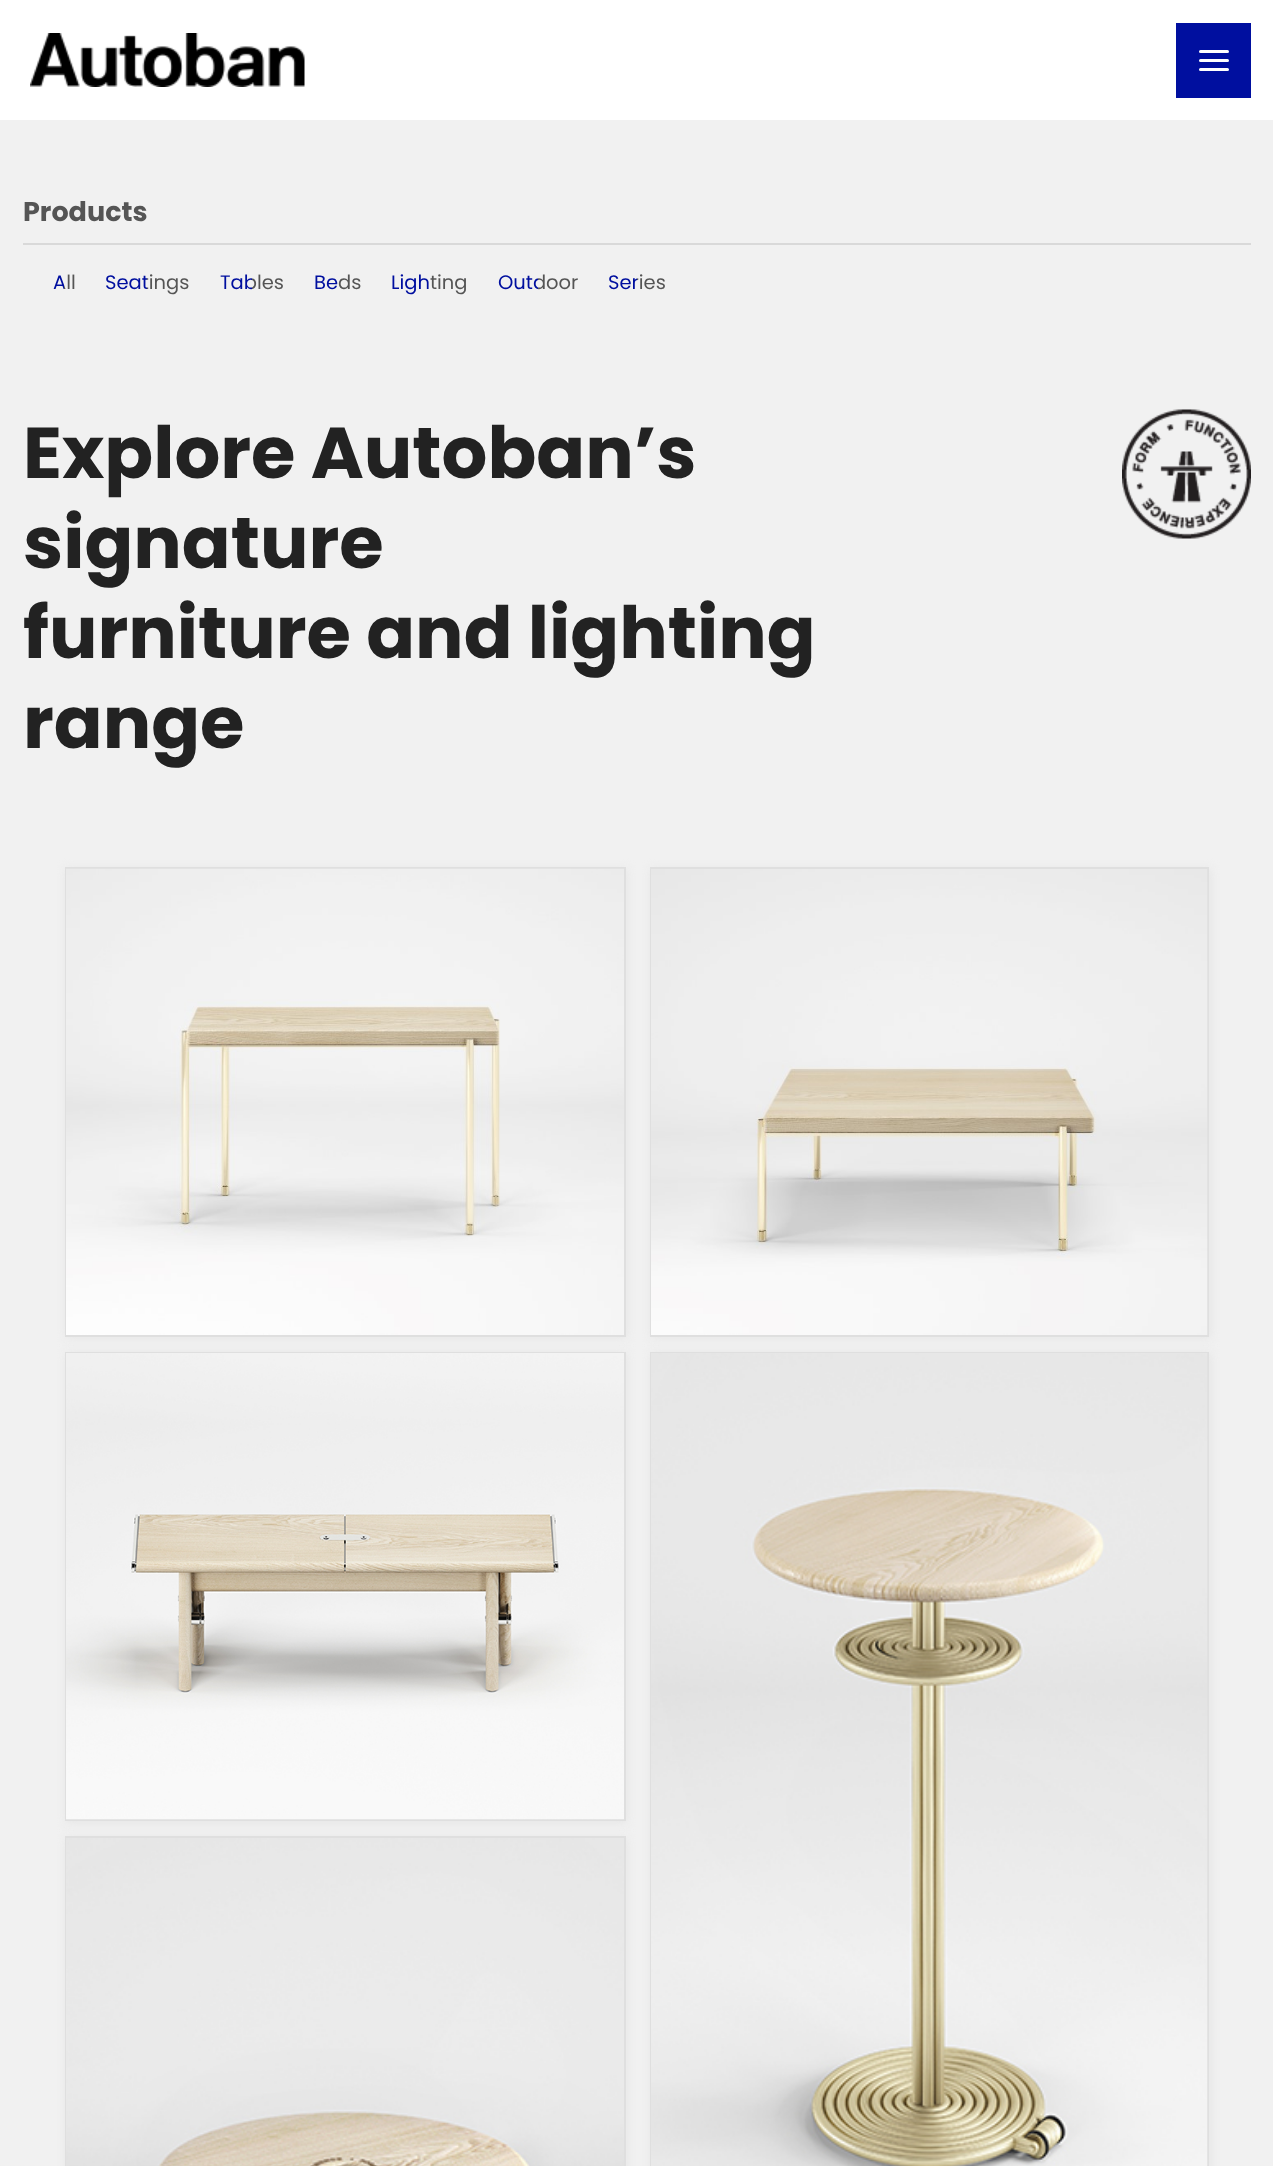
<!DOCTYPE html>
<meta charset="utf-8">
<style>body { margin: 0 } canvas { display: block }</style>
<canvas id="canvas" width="1273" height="2166"></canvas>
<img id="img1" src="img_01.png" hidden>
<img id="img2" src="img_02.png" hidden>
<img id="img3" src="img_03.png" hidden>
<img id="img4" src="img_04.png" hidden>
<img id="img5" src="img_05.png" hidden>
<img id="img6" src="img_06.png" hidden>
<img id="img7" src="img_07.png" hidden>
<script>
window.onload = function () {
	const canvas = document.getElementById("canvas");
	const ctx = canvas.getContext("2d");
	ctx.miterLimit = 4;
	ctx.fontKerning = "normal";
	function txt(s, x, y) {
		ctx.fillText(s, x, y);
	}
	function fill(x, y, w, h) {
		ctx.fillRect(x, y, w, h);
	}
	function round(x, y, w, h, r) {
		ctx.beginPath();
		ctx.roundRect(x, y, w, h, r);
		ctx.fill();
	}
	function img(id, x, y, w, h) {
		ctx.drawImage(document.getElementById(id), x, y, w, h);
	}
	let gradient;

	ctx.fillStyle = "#F1F1F1";
	fill(0, 0, 1273, 2166);
	ctx.fillStyle = "#FFFFFF";
	fill(0, 0, 1273, 120);
	img("img1", 30, 33, 275, 54);
	ctx.fillStyle = "#000F9F";
	fill(1176, 23, 75, 75);
	ctx.fillStyle = "#FFFFFF";
	round(1199, 50, 30, 3, 1.5);
	round(1199, 59, 30, 3, 1.5);
	round(1199, 68, 30, 3, 1.5);
	ctx.fillStyle = "#D9D9D9";
	fill(23, 243, 1228, 2);
	img("img2", 1122, 409, 129, 130);
	ctx.fillStyle = "#E5E5E5";
	ctx.filter = "blur(5px)";
	ctx.beginPath();
	ctx.rect(66, 869, 561, 469);
	ctx.fill();
	ctx.filter = "none";
	ctx.strokeStyle = "#DFDFDF";
	ctx.lineWidth = 2;
	ctx.strokeRect(66, 868, 559, 468);
	img("img3", 66, 868, 558, 467);
	ctx.filter = "blur(5px)";
	ctx.beginPath();
	ctx.rect(66, 1353, 561, 470);
	ctx.fill();
	ctx.filter = "none";
	ctx.strokeRect(66, 1353, 559, 467);
	img("img4", 66, 1353, 558, 467);
	ctx.filter = "blur(5px)";
	ctx.beginPath();
	ctx.rect(66, 1838, 561, 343);
	ctx.fill();
	ctx.filter = "none";
	ctx.strokeRect(66, 1837, 559, 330);
	img("img5", 66, 1838, 558, 328);
	ctx.filter = "blur(5px)";
	ctx.beginPath();
	ctx.rect(651, 869, 560, 469);
	ctx.fill();
	ctx.filter = "none";
	ctx.strokeRect(651, 868, 557, 468);
	img("img6", 651, 869, 557, 466);
	ctx.filter = "blur(5px)";
	ctx.beginPath();
	ctx.rect(651, 1353, 560, 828);
	ctx.fill();
	ctx.filter = "none";
	ctx.strokeRect(651, 1353, 557, 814);
	img("img7", 651, 1353, 557, 813);
	ctx.font = "bold 27px Poppins";
	ctx.fillStyle = "#555555";
	txt("Products", 23, 221);
	ctx.font = "19.5px Poppins";
	gradient = ctx.createLinearGradient(75, 283, 53, 283);
	gradient.addColorStop(0, "#555555");
	gradient.addColorStop(0.5, "#555555");
	gradient.addColorStop(0.5, "#000F9F");
	ctx.fillStyle = gradient;
	txt("All", 53, 289);
	gradient = ctx.createLinearGradient(190, 283, 105, 283);
	gradient.addColorStop(0, "#555555");
	gradient.addColorStop(0.5, "#555555");
	gradient.addColorStop(0.5, "#000F9F");
	ctx.fillStyle = gradient;
	txt("Seatings", 105, 289);
	gradient = ctx.createLinearGradient(284, 283, 220, 283);
	gradient.addColorStop(0, "#555555");
	gradient.addColorStop(0.5, "#555555");
	gradient.addColorStop(0.5, "#000F9F");
	ctx.fillStyle = gradient;
	txt("Tables", 220, 289);
	gradient = ctx.createLinearGradient(361, 283, 314, 283);
	gradient.addColorStop(0, "#555555");
	gradient.addColorStop(0.5, "#555555");
	gradient.addColorStop(0.5, "#000F9F");
	ctx.fillStyle = gradient;
	txt("Beds", 314, 289);
	gradient = ctx.createLinearGradient(468, 283, 391, 283);
	gradient.addColorStop(0, "#555555");
	gradient.addColorStop(0.5, "#555555");
	gradient.addColorStop(0.5, "#000F9F");
	ctx.fillStyle = gradient;
	txt("Lighting", 391, 289);
	gradient = ctx.createLinearGradient(578, 283, 498, 283);
	gradient.addColorStop(0, "#555555");
	gradient.addColorStop(0.5, "#555555");
	gradient.addColorStop(0.5, "#000F9F");
	ctx.fillStyle = gradient;
	txt("Outdoor", 498, 289);
	gradient = ctx.createLinearGradient(666, 283, 608, 283);
	gradient.addColorStop(0, "#555555");
	gradient.addColorStop(0.5, "#555555");
	gradient.addColorStop(0.5, "#000F9F");
	ctx.fillStyle = gradient;
	txt("Series", 608, 289);
	ctx.font = "bold 72px Poppins";
	ctx.fillStyle = "#222222";
	txt("Explore Autoban’s", 23, 478);
	txt("signature", 23, 568);
	txt("furniture and lighting", 23, 658);
	txt("range", 23, 748);
};
</script>
